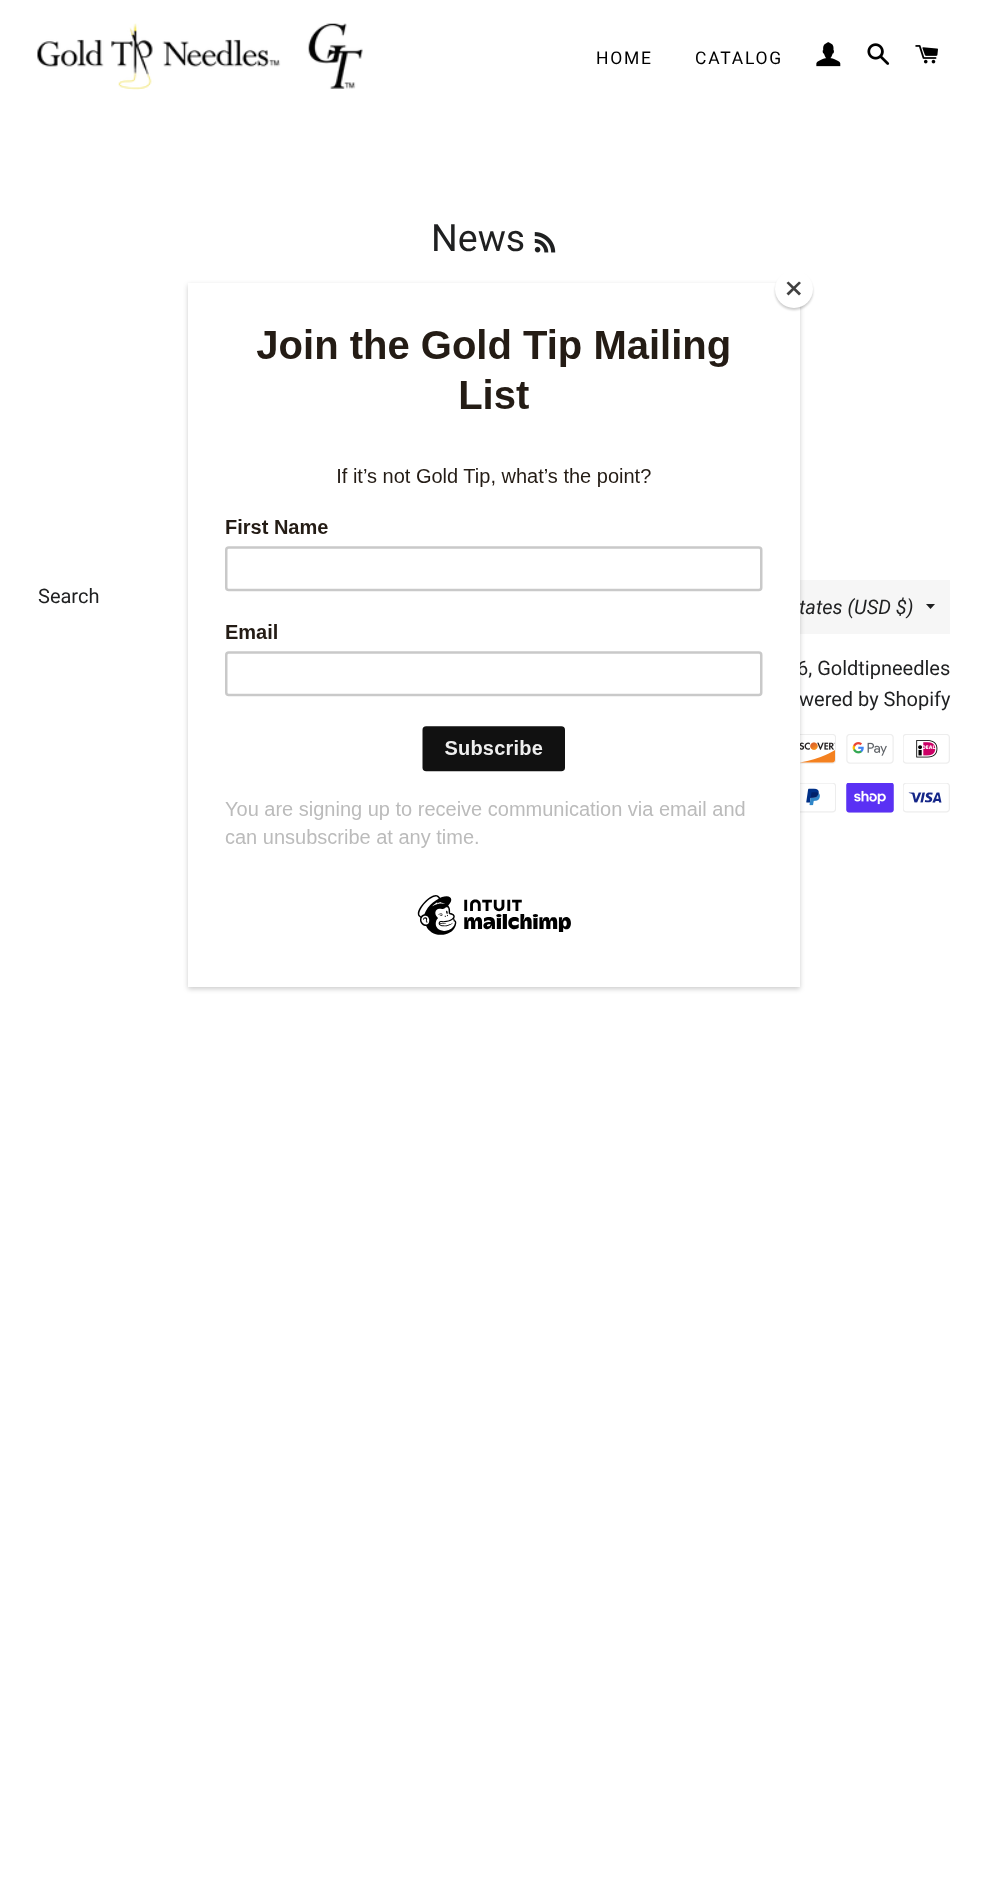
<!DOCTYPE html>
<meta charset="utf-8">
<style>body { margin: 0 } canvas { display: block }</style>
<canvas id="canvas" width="987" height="1881"></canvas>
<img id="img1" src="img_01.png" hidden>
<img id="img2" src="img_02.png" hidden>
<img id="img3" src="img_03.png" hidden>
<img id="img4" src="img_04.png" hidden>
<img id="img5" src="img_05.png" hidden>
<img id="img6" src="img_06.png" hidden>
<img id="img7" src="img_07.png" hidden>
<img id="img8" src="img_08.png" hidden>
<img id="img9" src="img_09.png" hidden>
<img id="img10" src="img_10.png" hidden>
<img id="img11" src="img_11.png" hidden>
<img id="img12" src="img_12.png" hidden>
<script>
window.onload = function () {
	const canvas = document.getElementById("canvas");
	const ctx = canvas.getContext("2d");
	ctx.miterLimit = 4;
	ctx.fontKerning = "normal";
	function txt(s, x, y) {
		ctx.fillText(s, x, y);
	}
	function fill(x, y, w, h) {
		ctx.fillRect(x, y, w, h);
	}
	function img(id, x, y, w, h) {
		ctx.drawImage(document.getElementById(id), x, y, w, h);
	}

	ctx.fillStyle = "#FFFFFF";
	fill(0, 0, 987, 1881);
	img("img1", 37, 23, 326, 67);
	img("img2", 816, 42, 25, 25);
	img("img3", 867, 43, 23, 22);
	img("img4", 915, 45, 23, 19);
	img("img5", 534, 232, 22, 21);
	ctx.fillStyle = "#F6F6F6";
	fill(800, 580, 150, 54);
	ctx.fillStyle = "#1F2021";
	ctx.beginPath();
	ctx.moveTo(926, 604);
	ctx.lineTo(930.5, 609);
	ctx.lineTo(935, 604);
	ctx.closePath();
	ctx.fill();
	img("img6", 800, 734, 36, 30);
	img("img7", 846, 734, 48, 30);
	img("img8", 903, 734, 47, 30);
	img("img9", 800, 783, 36, 30);
	img("img10", 846, 783, 48, 30);
	img("img11", 903, 783, 47, 30);
	ctx.save();
	ctx.beginPath();
	ctx.moveTo(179, 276);
	ctx.lineTo(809, 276);
	ctx.lineTo(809, 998);
	ctx.lineTo(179, 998);
	ctx.closePath();
	ctx.moveTo(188, 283);
	ctx.lineTo(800, 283);
	ctx.lineTo(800, 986);
	ctx.lineTo(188, 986);
	ctx.closePath();
	ctx.clip("evenodd");
	ctx.fillStyle = "rgba(0, 0, 0, 0.2)";
	ctx.filter = "blur(2.5px)";
	ctx.beginPath();
	ctx.rect(188, 285, 612, 704);
	ctx.fill();
	ctx.filter = "none";
	ctx.restore();
	ctx.letterSpacing = "1.75px";
	ctx.font = "17.5px Roboto";
	ctx.fillStyle = "#000000";
	txt("HOME", 596, 64);
	txt("CATALOG", 695, 64);
	ctx.letterSpacing = "0px";
	ctx.font = "37.5px Roboto";
	ctx.fillStyle = "#1F2021";
	txt("News", 431, 251);
	ctx.font = "20px Roboto";
	txt("Search", 38, 603);
	ctx.font = "italic 20px Roboto";
	txt("tates (USD $)", 799, 614);
	ctx.font = "20px Roboto";
	txt("6, Goldtipneedles", 797, 675);
	txt("wered by Shopify", 799, 706);
	img("img12", 188, 290, 612, 697);
	ctx.fillStyle = "rgba(0, 0, 0, 0.2)";
	ctx.filter = "blur(1px)";
	ctx.beginPath();
	ctx.roundRect(775, 273, 38, 37, 18.5);
	ctx.fill();
	ctx.filter = "none";
	ctx.fillStyle = "#FFFFFF";
	ctx.beginPath();
	ctx.arc(794, 289, 19, 0, Math.PI * 2);
	ctx.fill();
	ctx.fillStyle = "#414141";
	ctx.beginPath();
	ctx.moveTo(799, 281.5);
	ctx.lineTo(801, 283);
	ctx.lineTo(788.5, 295.5);
	ctx.lineTo(786.5, 293.5);
	ctx.closePath();
	ctx.fill();
	ctx.beginPath();
	ctx.moveTo(786.5, 283);
	ctx.lineTo(788.5, 281.5);
	ctx.lineTo(801, 293.5);
	ctx.lineTo(799, 295.5);
	ctx.closePath();
	ctx.fill();
};
</script>
